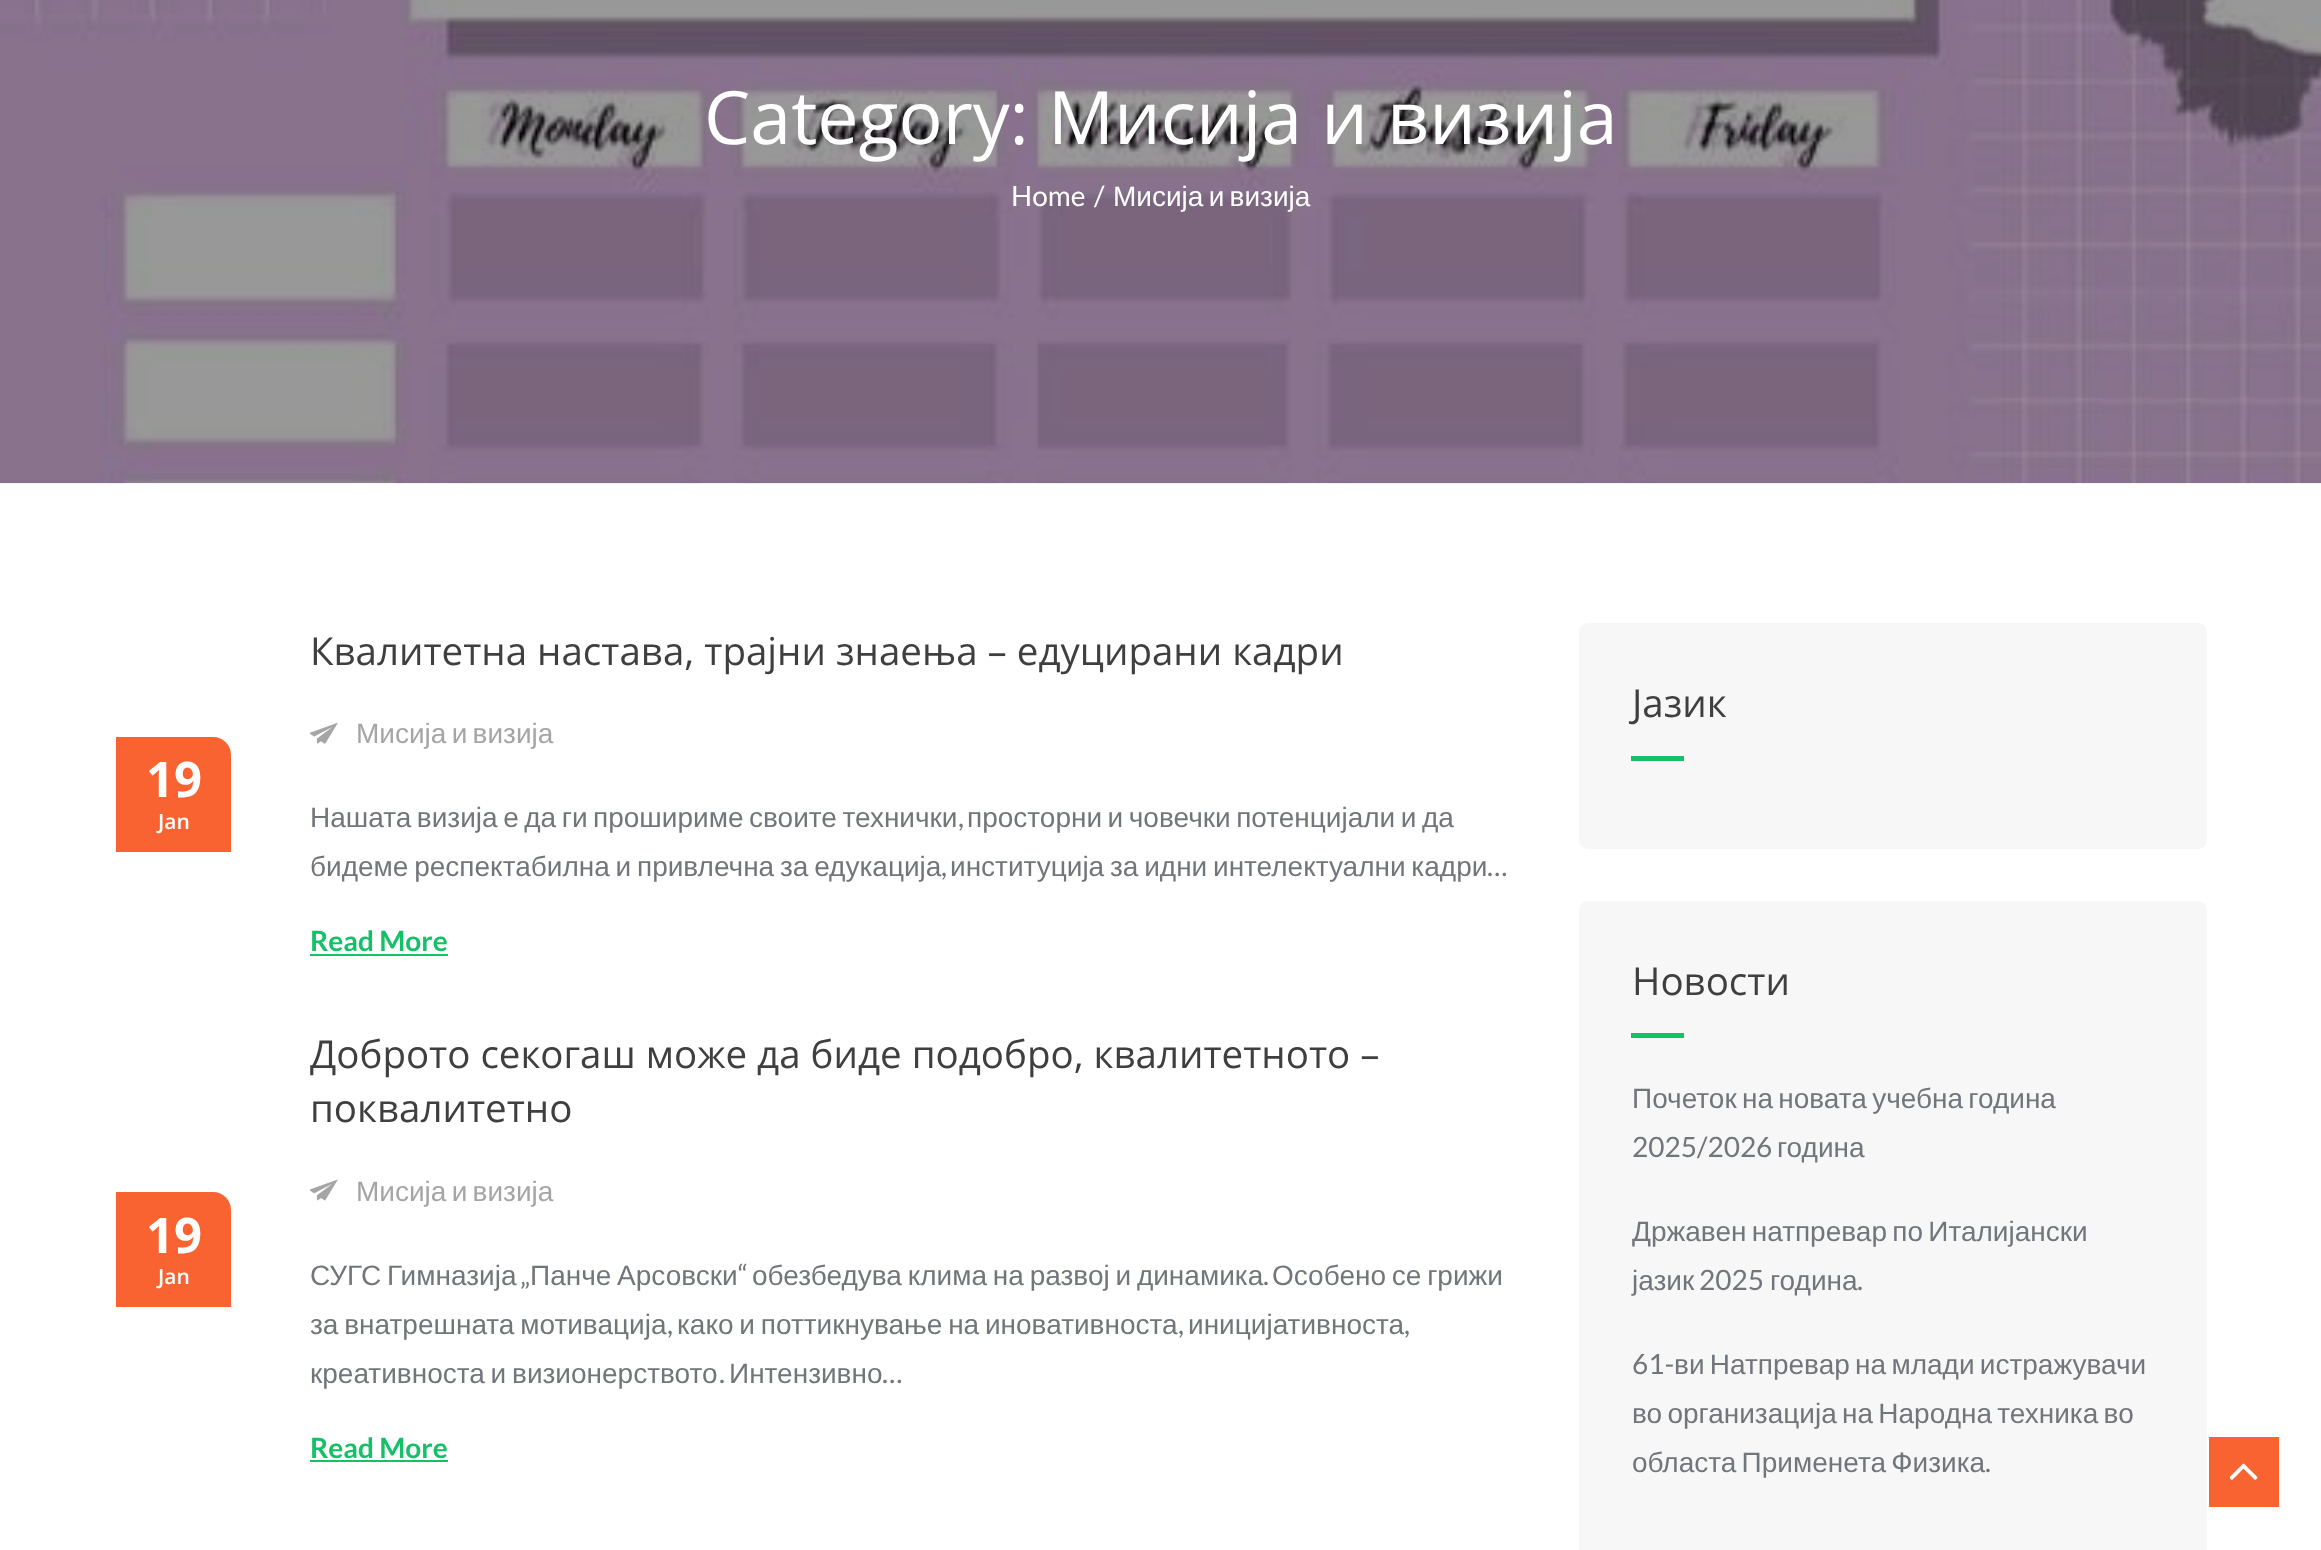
<!DOCTYPE html>
<meta charset="utf-8">
<style>body { margin: 0 } canvas { display: block }</style>
<canvas id="canvas" width="2321" height="1550"></canvas>
<img id="img1" src="img_01.png" hidden>
<img id="img2" src="img_02.png" hidden>
<img id="img3" src="img_03.png" hidden>
<img id="img4" src="img_04.png" hidden>
<script>
window.onload = function () {
	const canvas = document.getElementById("canvas");
	const ctx = canvas.getContext("2d");
	ctx.miterLimit = 4;
	ctx.fontKerning = "normal";
	function txt(s, x, y) {
		ctx.fillText(s, x, y);
	}
	function fill(x, y, w, h) {
		ctx.fillRect(x, y, w, h);
	}
	function round(x, y, w, h, r) {
		ctx.beginPath();
		ctx.roundRect(x, y, w, h, r);
		ctx.fill();
	}
	function img(id, x, y, w, h) {
		ctx.drawImage(document.getElementById(id), x, y, w, h);
	}

	ctx.fillStyle = "#FFFFFF";
	fill(0, 0, 2321, 1550);
	img("img1", 0, 0, 2321, 484);
	ctx.fillStyle = "#F96331";
	ctx.beginPath();
	ctx.roundRect(116, 737, 115, 115, [0, 18, 0, 0]);
	ctx.fill();
	img("img2", 310, 722, 28, 22);
	ctx.fillStyle = "#14C167";
	fill(310, 954, 138, 2);
	ctx.fillStyle = "#F96331";
	ctx.beginPath();
	ctx.roundRect(116, 1192, 115, 115, [0, 18, 0, 0]);
	ctx.fill();
	img("img3", 310, 1179, 28, 22);
	ctx.fillStyle = "#14C167";
	fill(310, 1460, 138, 2);
	ctx.fillStyle = "#F7F7F7";
	round(1579, 623, 628, 226, 9);
	ctx.fillStyle = "#14C167";
	fill(1631, 756, 53, 5);
	ctx.fillStyle = "#F7F7F7";
	round(1579, 901, 628, 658, 9);
	ctx.fillStyle = "#14C167";
	fill(1631, 1033, 53, 5);
	ctx.fillStyle = "#F96331";
	fill(2209, 1437, 70, 70);
	img("img4", 2230, 1463, 28, 17);
	ctx.font = "73.5px Open Sans";
	ctx.fillStyle = "#FFFFFF";
	txt("Category: Мисија и визија", 704, 144);
	ctx.font = "28px Lato";
	txt("Home", 1011, 206);
	txt("/", 1094, 206);
	ctx.wordSpacing = "-2.5px";
	ctx.font = "28px Liberation Sans";
	txt("Мисија и визија", 1113, 206);
	ctx.wordSpacing = "0px";
	ctx.font = "bold 49px Open Sans";
	txt("19", 146, 797);
	ctx.font = "600 21px Open Sans";
	txt("Jan", 158, 829);
	ctx.font = "38.5px Open Sans";
	ctx.fillStyle = "#3F3F3F";
	txt("Квалитетна настава, трајни знаења – едуцирани кадри", 310, 665);
	ctx.wordSpacing = "-2.5px";
	ctx.font = "28px Liberation Sans";
	ctx.fillStyle = "#A5A5A5";
	txt("Мисија и визија", 356, 743);
	ctx.wordSpacing = "-2.25px";
	ctx.fillStyle = "#72757A";
	txt("Нашата визија е да ги прошириме своите технички", 310, 827);
	ctx.wordSpacing = "0px";
	ctx.font = "28px Lato";
	txt(",", 958, 827);
	ctx.wordSpacing = "-2.25px";
	ctx.font = "28px Liberation Sans";
	txt("просторни и човечки потенцијали и да", 967, 827);
	ctx.wordSpacing = "-2px";
	txt("бидеме респектабилна и привлечна за едукација", 310, 876);
	ctx.wordSpacing = "0px";
	ctx.font = "28px Lato";
	txt(",", 941, 876);
	ctx.wordSpacing = "-2px";
	ctx.font = "28px Liberation Sans";
	txt("институција за идни интелектуални кадри", 950, 876);
	ctx.wordSpacing = "0px";
	ctx.font = "28px Lato";
	txt("…", 1487, 876);
	ctx.font = "bold 28px Lato";
	ctx.fillStyle = "#14C167";
	txt("Read More", 310, 951);
	ctx.font = "bold 49px Open Sans";
	ctx.fillStyle = "#FFFFFF";
	txt("19", 146, 1253);
	ctx.font = "600 21px Open Sans";
	txt("Jan", 158, 1284);
	ctx.font = "38.5px Open Sans";
	ctx.fillStyle = "#3F3F3F";
	txt("Доброто секогаш може да биде подобро, квалитетното –", 310, 1068);
	txt("поквалитетно", 310, 1122);
	ctx.wordSpacing = "-2.5px";
	ctx.font = "28px Liberation Sans";
	ctx.fillStyle = "#A5A5A5";
	txt("Мисија и визија", 356, 1201);
	ctx.wordSpacing = "-2px";
	ctx.fillStyle = "#72757A";
	txt("СУГС Гимназија", 310, 1285);
	ctx.wordSpacing = "0px";
	ctx.font = "28px Lato";
	txt("„", 520, 1285);
	ctx.wordSpacing = "-2px";
	ctx.font = "28px Liberation Sans";
	txt("Панче Арсовски", 530, 1285);
	ctx.wordSpacing = "0px";
	ctx.font = "28px Lato";
	txt("“", 738, 1285);
	ctx.wordSpacing = "-2px";
	ctx.font = "28px Liberation Sans";
	txt("обезбедува клима на развој и динамика", 752, 1285);
	ctx.wordSpacing = "0px";
	ctx.font = "28px Lato";
	txt(".", 1263, 1285);
	ctx.wordSpacing = "-2px";
	ctx.font = "28px Liberation Sans";
	txt("Особено се грижи", 1272, 1285);
	txt("за внатрешната мотивација", 310, 1334);
	ctx.wordSpacing = "0px";
	ctx.font = "28px Lato";
	txt(",", 667, 1334);
	ctx.wordSpacing = "-2px";
	ctx.font = "28px Liberation Sans";
	txt("како и поттикнување на иновативноста", 677, 1334);
	ctx.wordSpacing = "0px";
	ctx.font = "28px Lato";
	txt(",", 1178, 1334);
	ctx.font = "28px Liberation Sans";
	txt("иницијативноста", 1188, 1334);
	ctx.font = "28px Lato";
	txt(",", 1404, 1334);
	ctx.wordSpacing = "-2px";
	ctx.font = "28px Liberation Sans";
	txt("креативноста и визионерството", 310, 1383);
	ctx.wordSpacing = "0px";
	ctx.font = "28px Lato";
	txt(".", 719, 1383);
	ctx.font = "28px Liberation Sans";
	txt("Интензивно", 729, 1383);
	ctx.font = "28px Lato";
	txt("…", 882, 1383);
	ctx.font = "bold 28px Lato";
	ctx.fillStyle = "#14C167";
	txt("Read More", 310, 1458);
	ctx.font = "38.5px Open Sans";
	ctx.fillStyle = "#3F3F3F";
	txt("Јазик", 1632, 717);
	txt("Новости", 1632, 995);
	ctx.wordSpacing = "-2.5px";
	ctx.font = "28px Liberation Sans";
	ctx.fillStyle = "#72757A";
	txt("Почеток на новата учебна година", 1632, 1108);
	ctx.wordSpacing = "0px";
	ctx.font = "28px Lato";
	txt("2025/2026", 1632, 1157);
	ctx.font = "28px Liberation Sans";
	txt("година", 1777, 1157);
	ctx.wordSpacing = "-2.5px";
	txt("Државен натпревар по Италијански", 1632, 1241);
	ctx.wordSpacing = "0px";
	txt("јазик", 1632, 1290);
	ctx.font = "28px Lato";
	txt("2025", 1699, 1290);
	ctx.font = "28px Liberation Sans";
	txt("година", 1770, 1290);
	ctx.font = "28px Lato";
	txt(".", 1857, 1290);
	txt("61-", 1632, 1374);
	ctx.wordSpacing = "-2.5px";
	ctx.font = "28px Liberation Sans";
	txt("ви Натпревар на млади истражувачи", 1674, 1374);
	txt("во организација на Народна техника во", 1632, 1423);
	txt("областа Применета Физика", 1632, 1472);
	ctx.wordSpacing = "0px";
	ctx.font = "28px Lato";
	txt(".", 1985, 1472);
};
</script>
